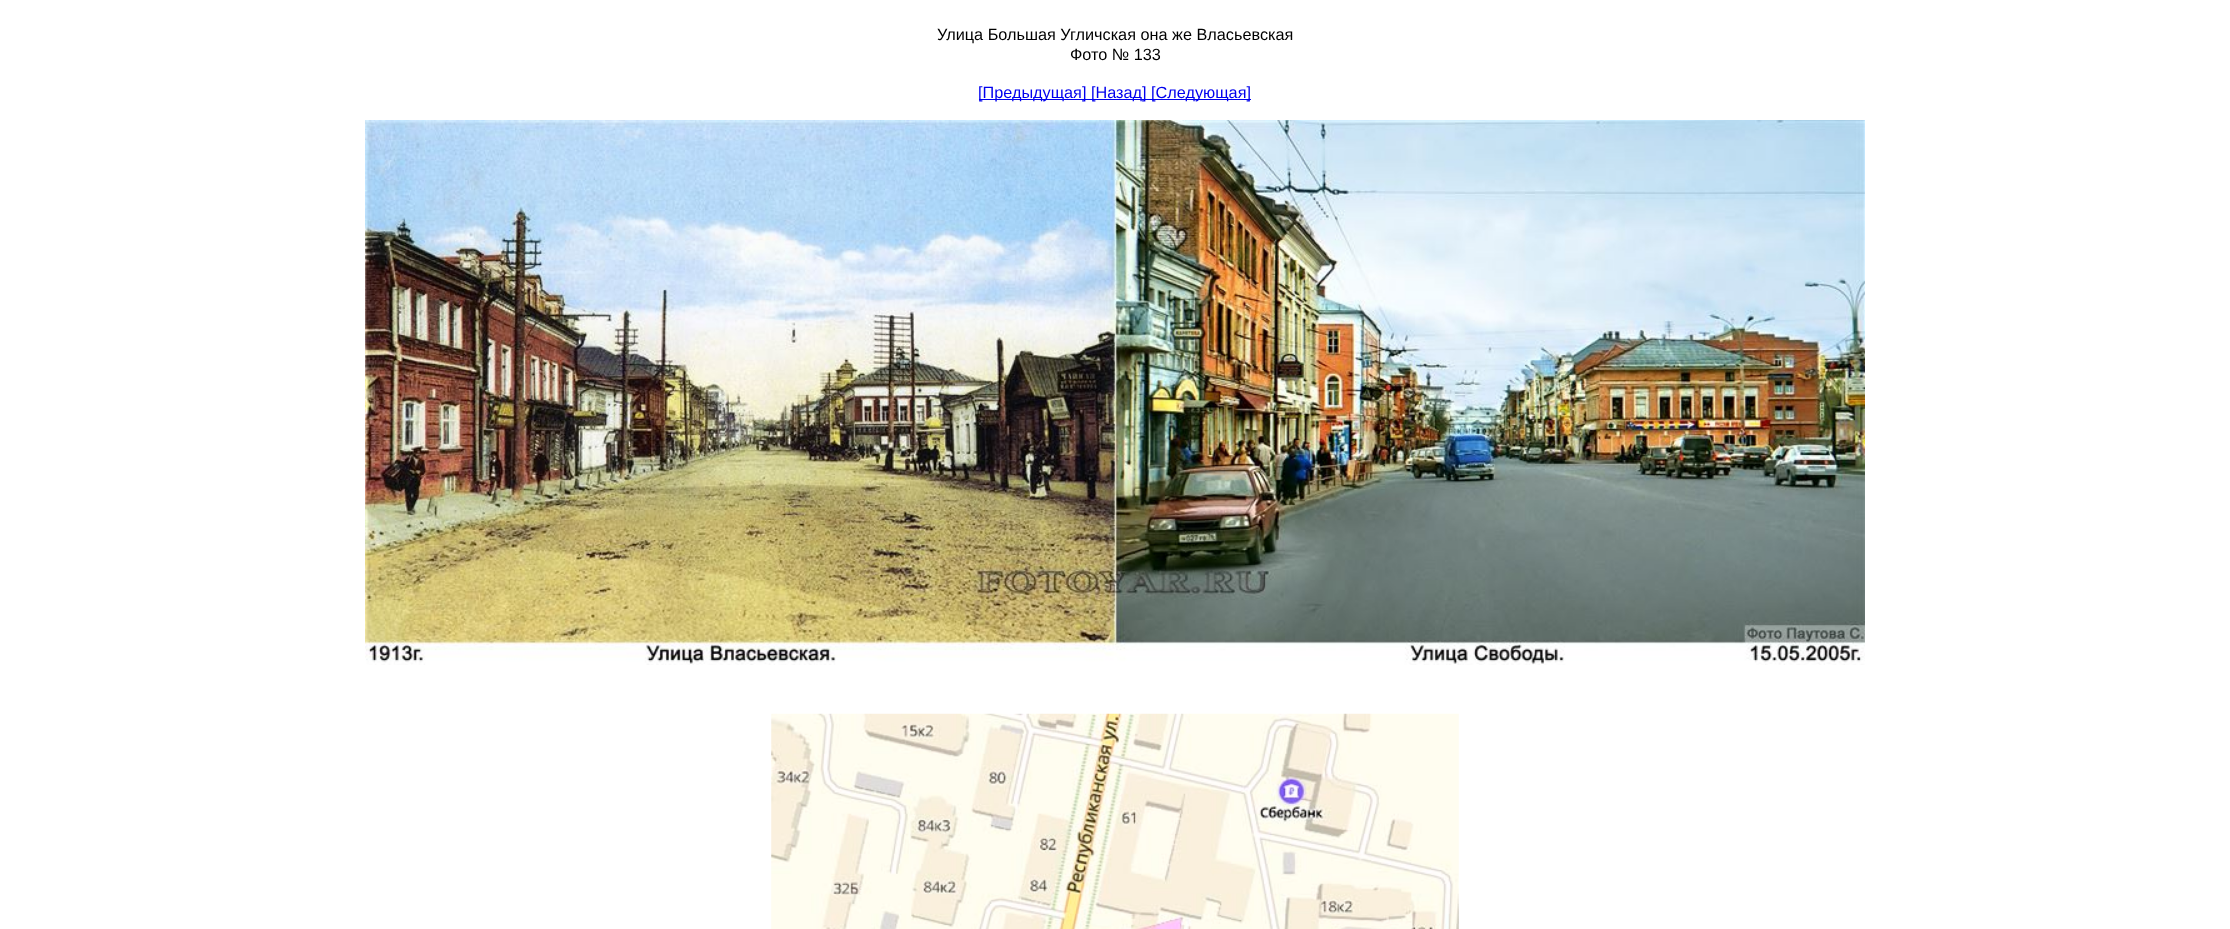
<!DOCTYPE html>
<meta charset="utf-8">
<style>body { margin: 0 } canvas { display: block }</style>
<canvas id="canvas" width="2230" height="929"></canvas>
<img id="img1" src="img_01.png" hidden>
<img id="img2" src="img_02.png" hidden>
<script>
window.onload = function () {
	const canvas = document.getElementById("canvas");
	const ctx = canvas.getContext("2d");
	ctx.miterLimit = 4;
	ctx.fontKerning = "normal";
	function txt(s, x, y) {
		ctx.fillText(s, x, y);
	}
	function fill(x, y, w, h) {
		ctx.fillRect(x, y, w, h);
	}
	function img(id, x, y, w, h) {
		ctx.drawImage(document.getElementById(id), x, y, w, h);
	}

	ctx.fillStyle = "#FFFFFF";
	fill(0, 0, 2230, 929);
	ctx.fillStyle = "#0000EE";
	fill(979, 99, 272, 1);
	img("img1", 365, 120, 1500, 545);
	img("img2", 771, 713, 688, 216);
	ctx.font = "16.25px Liberation Sans";
	ctx.fillStyle = "#000000";
	txt("Улица Большая Угличская она же Власьевская", 937, 40);
	txt("Фото № 133", 1070, 60);
	ctx.fillStyle = "#0000EE";
	txt("[Предыдущая] [Назад] [Следующая]", 978, 98);
};
</script>
